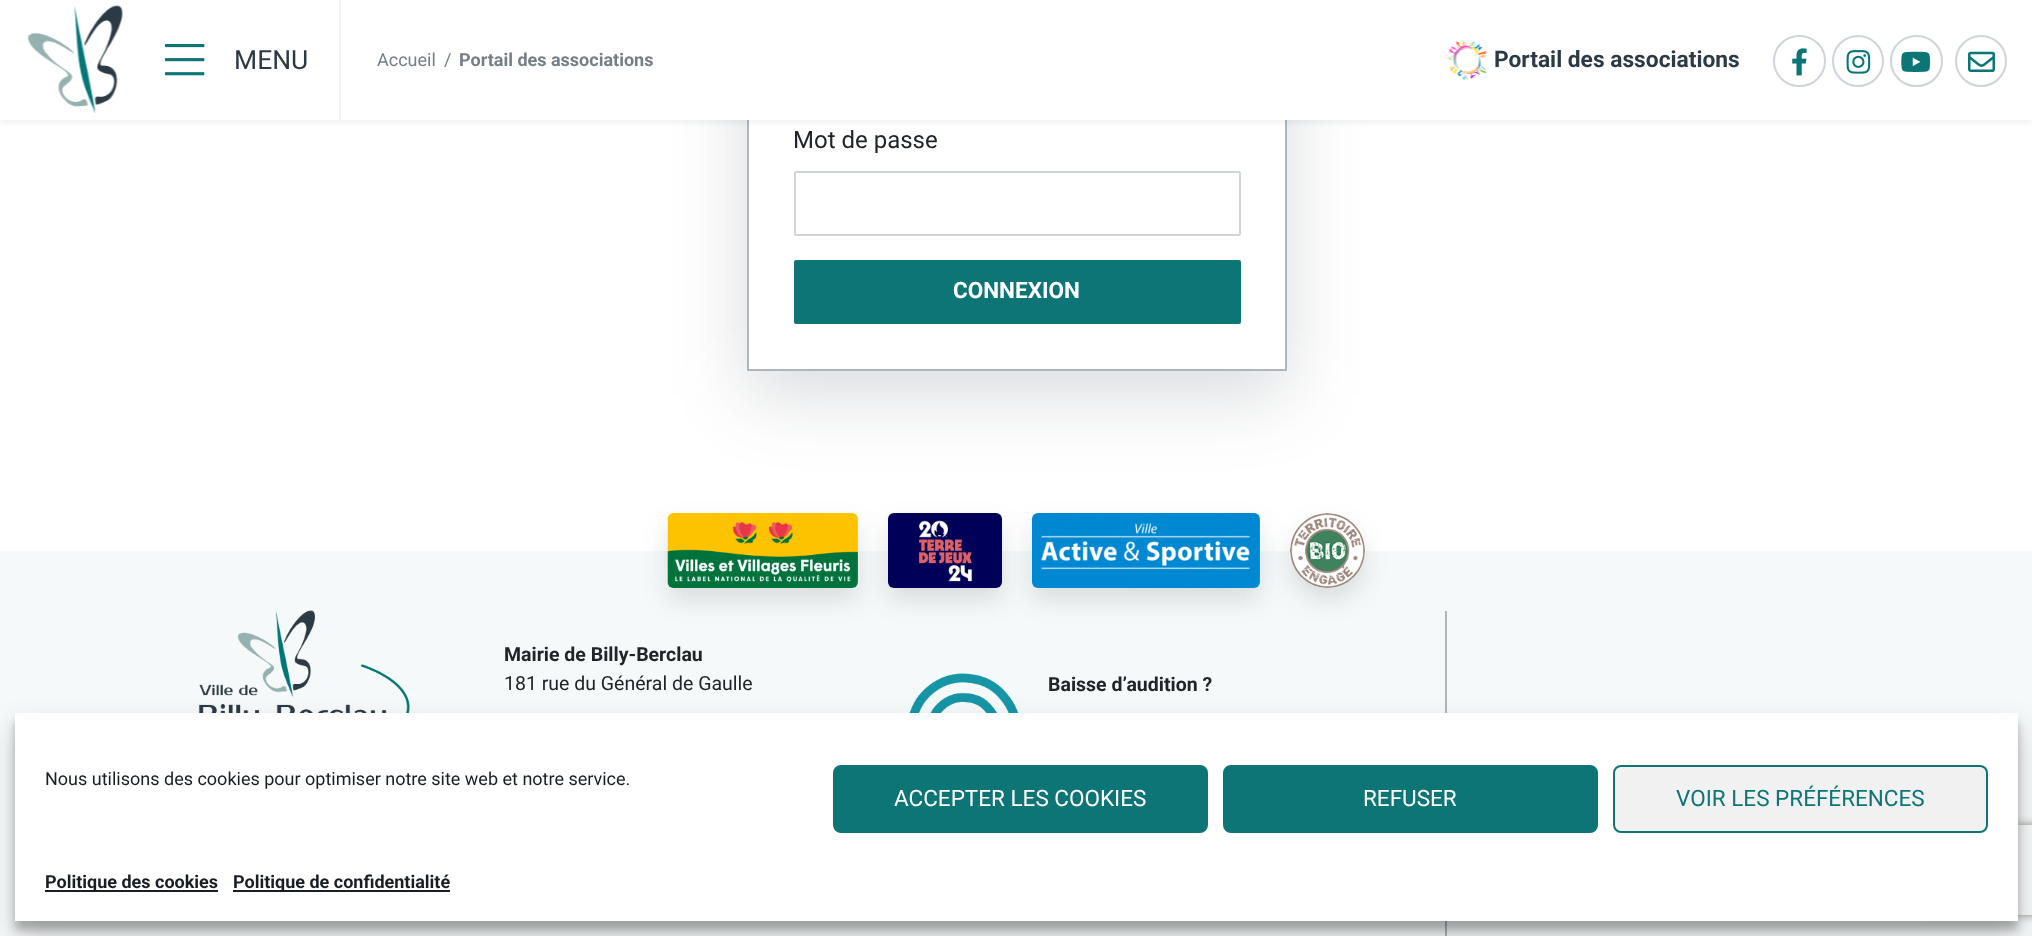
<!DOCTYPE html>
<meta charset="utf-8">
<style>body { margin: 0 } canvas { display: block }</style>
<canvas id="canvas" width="2032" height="936"></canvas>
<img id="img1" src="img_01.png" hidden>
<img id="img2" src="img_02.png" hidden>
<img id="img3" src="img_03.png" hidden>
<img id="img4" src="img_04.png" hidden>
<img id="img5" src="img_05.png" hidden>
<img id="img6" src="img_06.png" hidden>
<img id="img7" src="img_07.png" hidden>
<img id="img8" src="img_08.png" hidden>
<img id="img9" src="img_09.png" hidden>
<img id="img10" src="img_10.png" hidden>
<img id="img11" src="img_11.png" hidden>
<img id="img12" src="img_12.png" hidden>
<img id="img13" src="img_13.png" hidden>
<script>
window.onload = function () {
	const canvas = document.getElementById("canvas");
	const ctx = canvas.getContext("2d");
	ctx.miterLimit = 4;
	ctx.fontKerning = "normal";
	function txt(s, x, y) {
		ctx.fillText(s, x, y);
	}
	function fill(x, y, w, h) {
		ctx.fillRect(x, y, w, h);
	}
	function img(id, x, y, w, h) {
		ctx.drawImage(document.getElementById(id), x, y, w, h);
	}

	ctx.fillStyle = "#FFFFFF";
	fill(0, 0, 2032, 936);
	ctx.save();
	ctx.beginPath();
	ctx.moveTo(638, 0);
	ctx.lineTo(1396, 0);
	ctx.lineTo(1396, 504);
	ctx.lineTo(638, 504);
	ctx.closePath();
	ctx.moveTo(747, -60);
	ctx.lineTo(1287, -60);
	ctx.lineTo(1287, 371);
	ctx.lineTo(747, 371);
	ctx.closePath();
	ctx.clip("evenodd");
	ctx.fillStyle = "rgba(43, 58, 68, 0.18)";
	ctx.filter = "blur(36px)";
	ctx.beginPath();
	ctx.rect(747, -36, 540, 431);
	ctx.fill();
	ctx.filter = "none";
	ctx.restore();
	ctx.strokeStyle = "#ADB5BD";
	ctx.lineWidth = 2;
	ctx.strokeRect(748, -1, 538, 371);
	ctx.fillStyle = "rgba(43, 58, 68, 0.07)";
	ctx.filter = "blur(3px)";
	ctx.beginPath();
	ctx.rect(0, 3, 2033, 120);
	ctx.fill();
	ctx.filter = "none";
	ctx.fillStyle = "#FFFFFF";
	fill(0, 0, 2032, 120);
	ctx.fillStyle = "#EFF3F3";
	fill(339, 0, 2, 120);
	img("img1", 27, 5, 96, 108);
	img("img2", 165, 44, 40, 32);
	img("img3", 1446, 41, 41, 39);
	ctx.beginPath();
	ctx.roundRect(1774, 36, 51, 50, 25);
	ctx.strokeStyle = "#CED4DA";
	ctx.stroke();
	img("img4", 1792, 48, 15, 28);
	ctx.beginPath();
	ctx.arc(1858, 61, 25, 0, Math.PI * 2);
	ctx.stroke();
	img("img5", 1846, 50, 25, 24);
	ctx.beginPath();
	ctx.roundRect(1891, 36, 51, 50, 25);
	ctx.stroke();
	img("img6", 1901, 51, 30, 21);
	ctx.beginPath();
	ctx.arc(1981, 61, 25, 0, Math.PI * 2);
	ctx.stroke();
	img("img7", 1968, 51, 27, 21);
	ctx.beginPath();
	ctx.roundRect(795, 172, 445, 63, 1);
	ctx.stroke();
	ctx.fillStyle = "#0E7577";
	ctx.beginPath();
	ctx.roundRect(795, 261, 445, 62, 1);
	ctx.fill();
	ctx.strokeStyle = "#0E7577";
	ctx.stroke();
	ctx.fillStyle = "#F6F9F9";
	fill(0, 551, 2032, 385);
	ctx.fillStyle = "rgba(43, 58, 68, 0.15)";
	ctx.filter = "blur(12px)";
	ctx.beginPath();
	ctx.roundRect(668, 525, 190, 75, 6);
	ctx.fill();
	ctx.filter = "none";
	img("img8", 667, 513, 191, 75);
	ctx.filter = "blur(12px)";
	ctx.beginPath();
	ctx.roundRect(888, 525, 114, 75, 6);
	ctx.fill();
	ctx.filter = "none";
	img("img9", 888, 513, 114, 75);
	ctx.filter = "blur(12px)";
	ctx.beginPath();
	ctx.roundRect(1032, 525, 228, 75, 6);
	ctx.fill();
	ctx.filter = "none";
	img("img10", 1032, 513, 228, 75);
	ctx.filter = "blur(12px)";
	ctx.beginPath();
	ctx.roundRect(1290, 525, 75, 75, 37.5);
	ctx.fill();
	ctx.filter = "none";
	img("img11", 1290, 513, 75, 75);
	img("img12", 198, 610, 212, 103);
	img("img13", 909, 673, 110, 40);
	ctx.fillStyle = "#ADB5BD";
	fill(1445, 611, 2, 325);
	ctx.fillStyle = "rgba(0, 0, 0, 0.23)";
	ctx.filter = "blur(4.5px)";
	ctx.beginPath();
	ctx.rect(15, 722, 2003, 208);
	ctx.fill();
	ctx.filter = "none";
	ctx.fillStyle = "rgba(0, 0, 0, 0.19)";
	ctx.filter = "blur(15px)";
	ctx.beginPath();
	ctx.rect(15, 728, 2003, 208);
	ctx.fill();
	ctx.filter = "none";
	ctx.save();
	ctx.beginPath();
	ctx.moveTo(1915, 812);
	ctx.lineTo(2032, 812);
	ctx.lineTo(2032, 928);
	ctx.lineTo(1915, 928);
	ctx.closePath();
	ctx.moveTo(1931, 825);
	ctx.lineTo(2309, 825);
	ctx.bezierCurveTo(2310.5, 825, 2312, 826.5, 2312, 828);
	ctx.lineTo(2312, 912);
	ctx.bezierCurveTo(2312, 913.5, 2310.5, 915, 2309, 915);
	ctx.lineTo(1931, 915);
	ctx.bezierCurveTo(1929.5, 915, 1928, 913.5, 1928, 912);
	ctx.lineTo(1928, 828);
	ctx.bezierCurveTo(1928, 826.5, 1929.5, 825, 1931, 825);
	ctx.closePath();
	ctx.clip("evenodd");
	ctx.fillStyle = "#808080";
	ctx.filter = "blur(4px)";
	ctx.beginPath();
	ctx.roundRect(1928, 825, 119, 90, 3);
	ctx.fill();
	ctx.filter = "none";
	ctx.restore();
	ctx.fillStyle = "#FFFFFF";
	fill(15, 713, 2003, 208);
	ctx.fillStyle = "#0E7577";
	ctx.beginPath();
	ctx.roundRect(834, 766, 373, 66, 7);
	ctx.fill();
	ctx.stroke();
	ctx.beginPath();
	ctx.roundRect(1224, 766, 373, 66, 7);
	ctx.fill();
	ctx.stroke();
	ctx.fillStyle = "#F1F1F1";
	ctx.beginPath();
	ctx.roundRect(1614, 766, 373, 66, 7);
	ctx.fill();
	ctx.stroke();
	ctx.fillStyle = "#191E23";
	fill(45, 890, 173, 2);
	fill(233, 890, 217, 2);
	ctx.font = "26.5px Roboto";
	ctx.fillStyle = "#2B3A44";
	txt("MENU", 234, 69);
	ctx.font = "18px Roboto";
	ctx.fillStyle = "#747E84";
	txt("Accueil", 377, 66);
	txt("/", 444, 66);
	ctx.font = "bold 18px Roboto";
	txt("Portail des associations", 459, 66);
	ctx.font = "bold 22.75px Roboto";
	ctx.fillStyle = "#2B3A44";
	txt("Portail des associations", 1494, 67);
	ctx.font = "24px Roboto";
	ctx.fillStyle = "#212529";
	txt("Mot de passe", 793, 148);
	ctx.font = "bold 22.5px Roboto";
	ctx.fillStyle = "#FFFFFF";
	txt("CONNEXION", 953, 298);
	ctx.font = "bold 19.5px Roboto";
	ctx.fillStyle = "#212529";
	txt("Mairie de Billy-Berclau", 504, 661);
	ctx.font = "19.5px Roboto";
	txt("181 rue du Général de Gaulle", 504, 690);
	ctx.font = "bold 19.5px Roboto";
	txt("Baisse d’audition ?", 1048, 691);
	ctx.font = "18px Roboto";
	ctx.fillStyle = "#191E23";
	txt("Nous utilisons des cookies pour optimiser notre site web et notre service.", 45, 785);
	ctx.font = "22.5px Roboto";
	ctx.fillStyle = "#FFFFFF";
	txt("ACCEPTER LES COOKIES", 894, 806);
	txt("REFUSER", 1363, 806);
	ctx.fillStyle = "#0E7577";
	txt("VOIR LES PRÉFÉRENCES", 1676, 806);
	ctx.font = "bold 18px Roboto";
	ctx.fillStyle = "#191E23";
	txt("Politique des cookies", 45, 888);
	txt("Politique de confidentialité", 233, 888);
};
</script>
